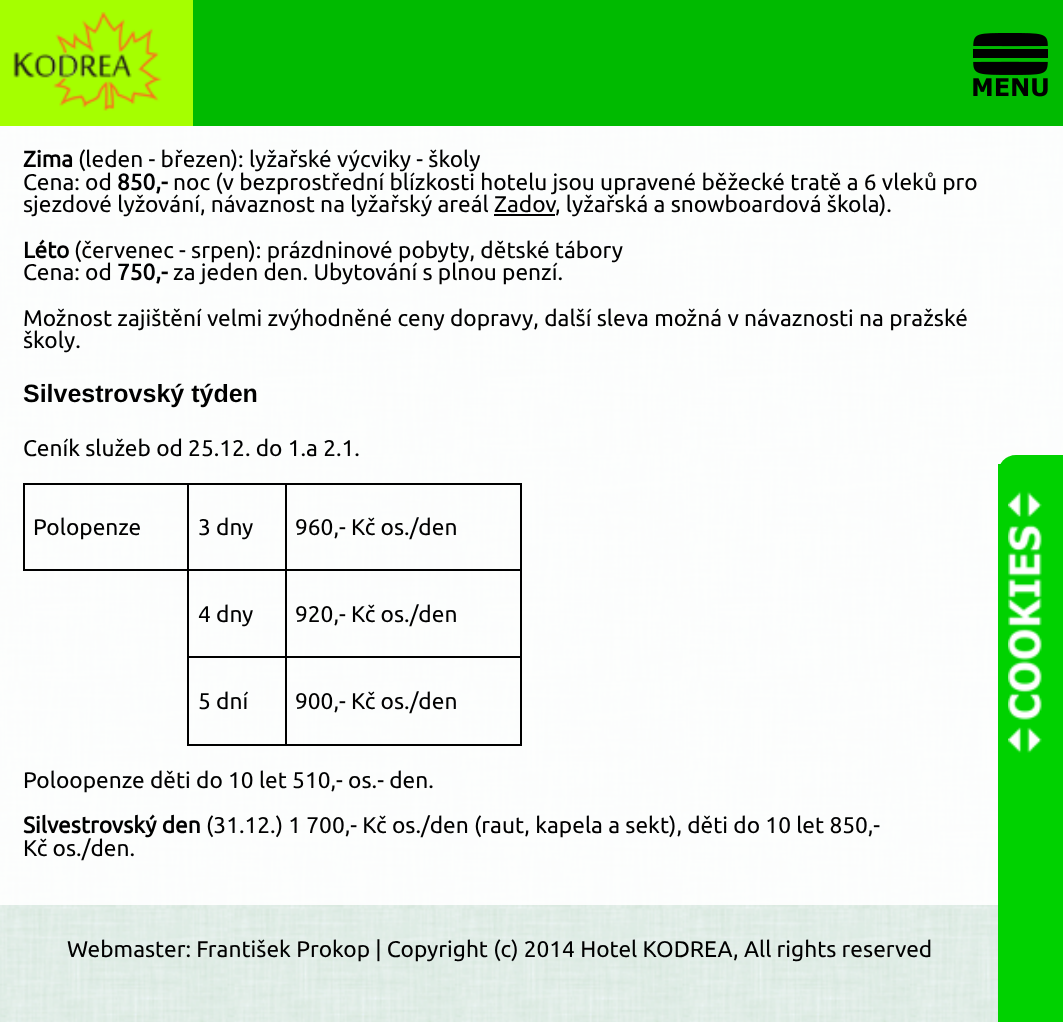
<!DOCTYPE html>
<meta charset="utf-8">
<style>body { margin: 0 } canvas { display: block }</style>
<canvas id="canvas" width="1063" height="1022"></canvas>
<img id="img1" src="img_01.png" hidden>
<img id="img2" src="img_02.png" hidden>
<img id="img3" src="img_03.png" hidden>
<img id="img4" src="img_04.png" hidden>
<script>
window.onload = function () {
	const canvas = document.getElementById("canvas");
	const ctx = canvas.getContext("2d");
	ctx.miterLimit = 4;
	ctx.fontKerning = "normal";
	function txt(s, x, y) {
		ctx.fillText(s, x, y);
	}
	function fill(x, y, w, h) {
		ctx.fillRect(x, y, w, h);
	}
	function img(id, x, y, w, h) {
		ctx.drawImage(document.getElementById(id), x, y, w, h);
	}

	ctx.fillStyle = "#FFFFFF";
	fill(0, 0, 1063, 1022);
	img("img1", 0, 126, 1063, 896);
	ctx.fillStyle = "#A5FF00";
	fill(0, 0, 193, 126);
	img("img2", 13, 12, 149, 99);
	ctx.fillStyle = "#00BA00";
	fill(193, 0, 870, 126);
	img("img3", 973, 33, 75, 64);
	ctx.fillStyle = "rgba(255, 255, 255, 0.9)";
	fill(0, 126, 1063, 779);
	ctx.fillStyle = "#000000";
	fill(494, 214, 61, 2);
	fill(285, 483, 237, 2);
	fill(285, 569, 237, 2);
	fill(285, 656, 237, 2);
	fill(520, 656, 2, 90);
	fill(285, 744, 237, 2);
	fill(285, 656, 2, 90);
	fill(187, 656, 100, 2);
	fill(285, 569, 2, 89);
	fill(187, 569, 100, 2);
	fill(285, 483, 2, 88);
	fill(187, 483, 100, 2);
	fill(187, 744, 100, 2);
	fill(187, 656, 2, 90);
	fill(187, 569, 2, 89);
	fill(187, 483, 2, 88);
	fill(23, 483, 166, 2);
	fill(23, 569, 166, 2);
	fill(23, 483, 2, 88);
	fill(520, 569, 2, 89);
	fill(520, 483, 2, 88);
	ctx.fillStyle = "#00D200";
	ctx.beginPath();
	ctx.moveTo(1016, 455);
	ctx.lineTo(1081, 455);
	ctx.lineTo(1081, 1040);
	ctx.lineTo(1016, 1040);
	ctx.bezierCurveTo(1006, 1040, 998, 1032, 998, 1022);
	ctx.lineTo(998, 473);
	ctx.bezierCurveTo(998, 463, 1006, 455, 1016, 455);
	ctx.closePath();
	ctx.fill();
	fill(998, 464, 3, 9);
	img("img4", 1008, 491, 34, 262);
	ctx.font = "bold 22.7px Ubuntu";
	ctx.fillStyle = "#000000";
	txt("Zima", 23, 167);
	ctx.font = "22.7px Ubuntu";
	txt("(leden - březen): lyžařské výcviky - školy", 78, 167);
	txt("Cena: od", 23, 190);
	ctx.font = "bold 22.7px Ubuntu";
	txt("850,-", 117, 190);
	ctx.font = "22.7px Ubuntu";
	txt("noc (v bezprostřední blízkosti hotelu jsou upravené běžecké tratě a 6 vleků pro", 173, 190);
	txt("sjezdové lyžování, návaznost na lyžařský areál Zadov", 23, 212);
	txt(", lyžařská a snowboardová škola).", 555, 212);
	ctx.font = "bold 22.7px Ubuntu";
	txt("Léto", 23, 258);
	ctx.font = "22.7px Ubuntu";
	txt("(červenec - srpen): prázdninové pobyty, dětské tábory", 74, 258);
	txt("Cena: od", 23, 280);
	ctx.font = "bold 22.7px Ubuntu";
	txt("750,-", 117, 280);
	ctx.font = "22.7px Ubuntu";
	txt("za jeden den. Ubytování s plnou penzí.", 173, 280);
	txt("Možnost zajištění velmi zvýhodněné ceny dopravy, další sleva možná v návaznosti na pražské", 23, 326);
	txt("školy.", 23, 348);
	ctx.font = "bold 25px Liberation Sans";
	txt("Silvestrovský týden", 23, 402);
	ctx.font = "22.7px Ubuntu";
	txt("Ceník služeb od 25.12. do 1.a 2.1.", 23, 456);
	txt("Polopenze", 33, 535);
	txt("3 dny", 198, 535);
	txt("960,- Kč os./den", 295, 535);
	txt("4 dny", 198, 622);
	txt("920,- Kč os./den", 295, 622);
	txt("5 dní", 198, 709);
	txt("900,- Kč os./den", 295, 709);
	txt("Poloopenze děti do 10 let 510,- os.- den.", 23, 788);
	ctx.font = "bold 22.7px Ubuntu";
	txt("Silvestrovský den", 23, 833);
	ctx.font = "22.7px Ubuntu";
	txt("(31.12.) 1 700,- Kč os./den (raut, kapela a sekt), děti do 10 let 850,-", 206, 833);
	txt("Kč os./den.", 23, 856);
	txt("Webmaster: František Prokop | Copyright (c) 2014 Hotel KODREA, All rights reserved", 67, 957);
};
</script>
